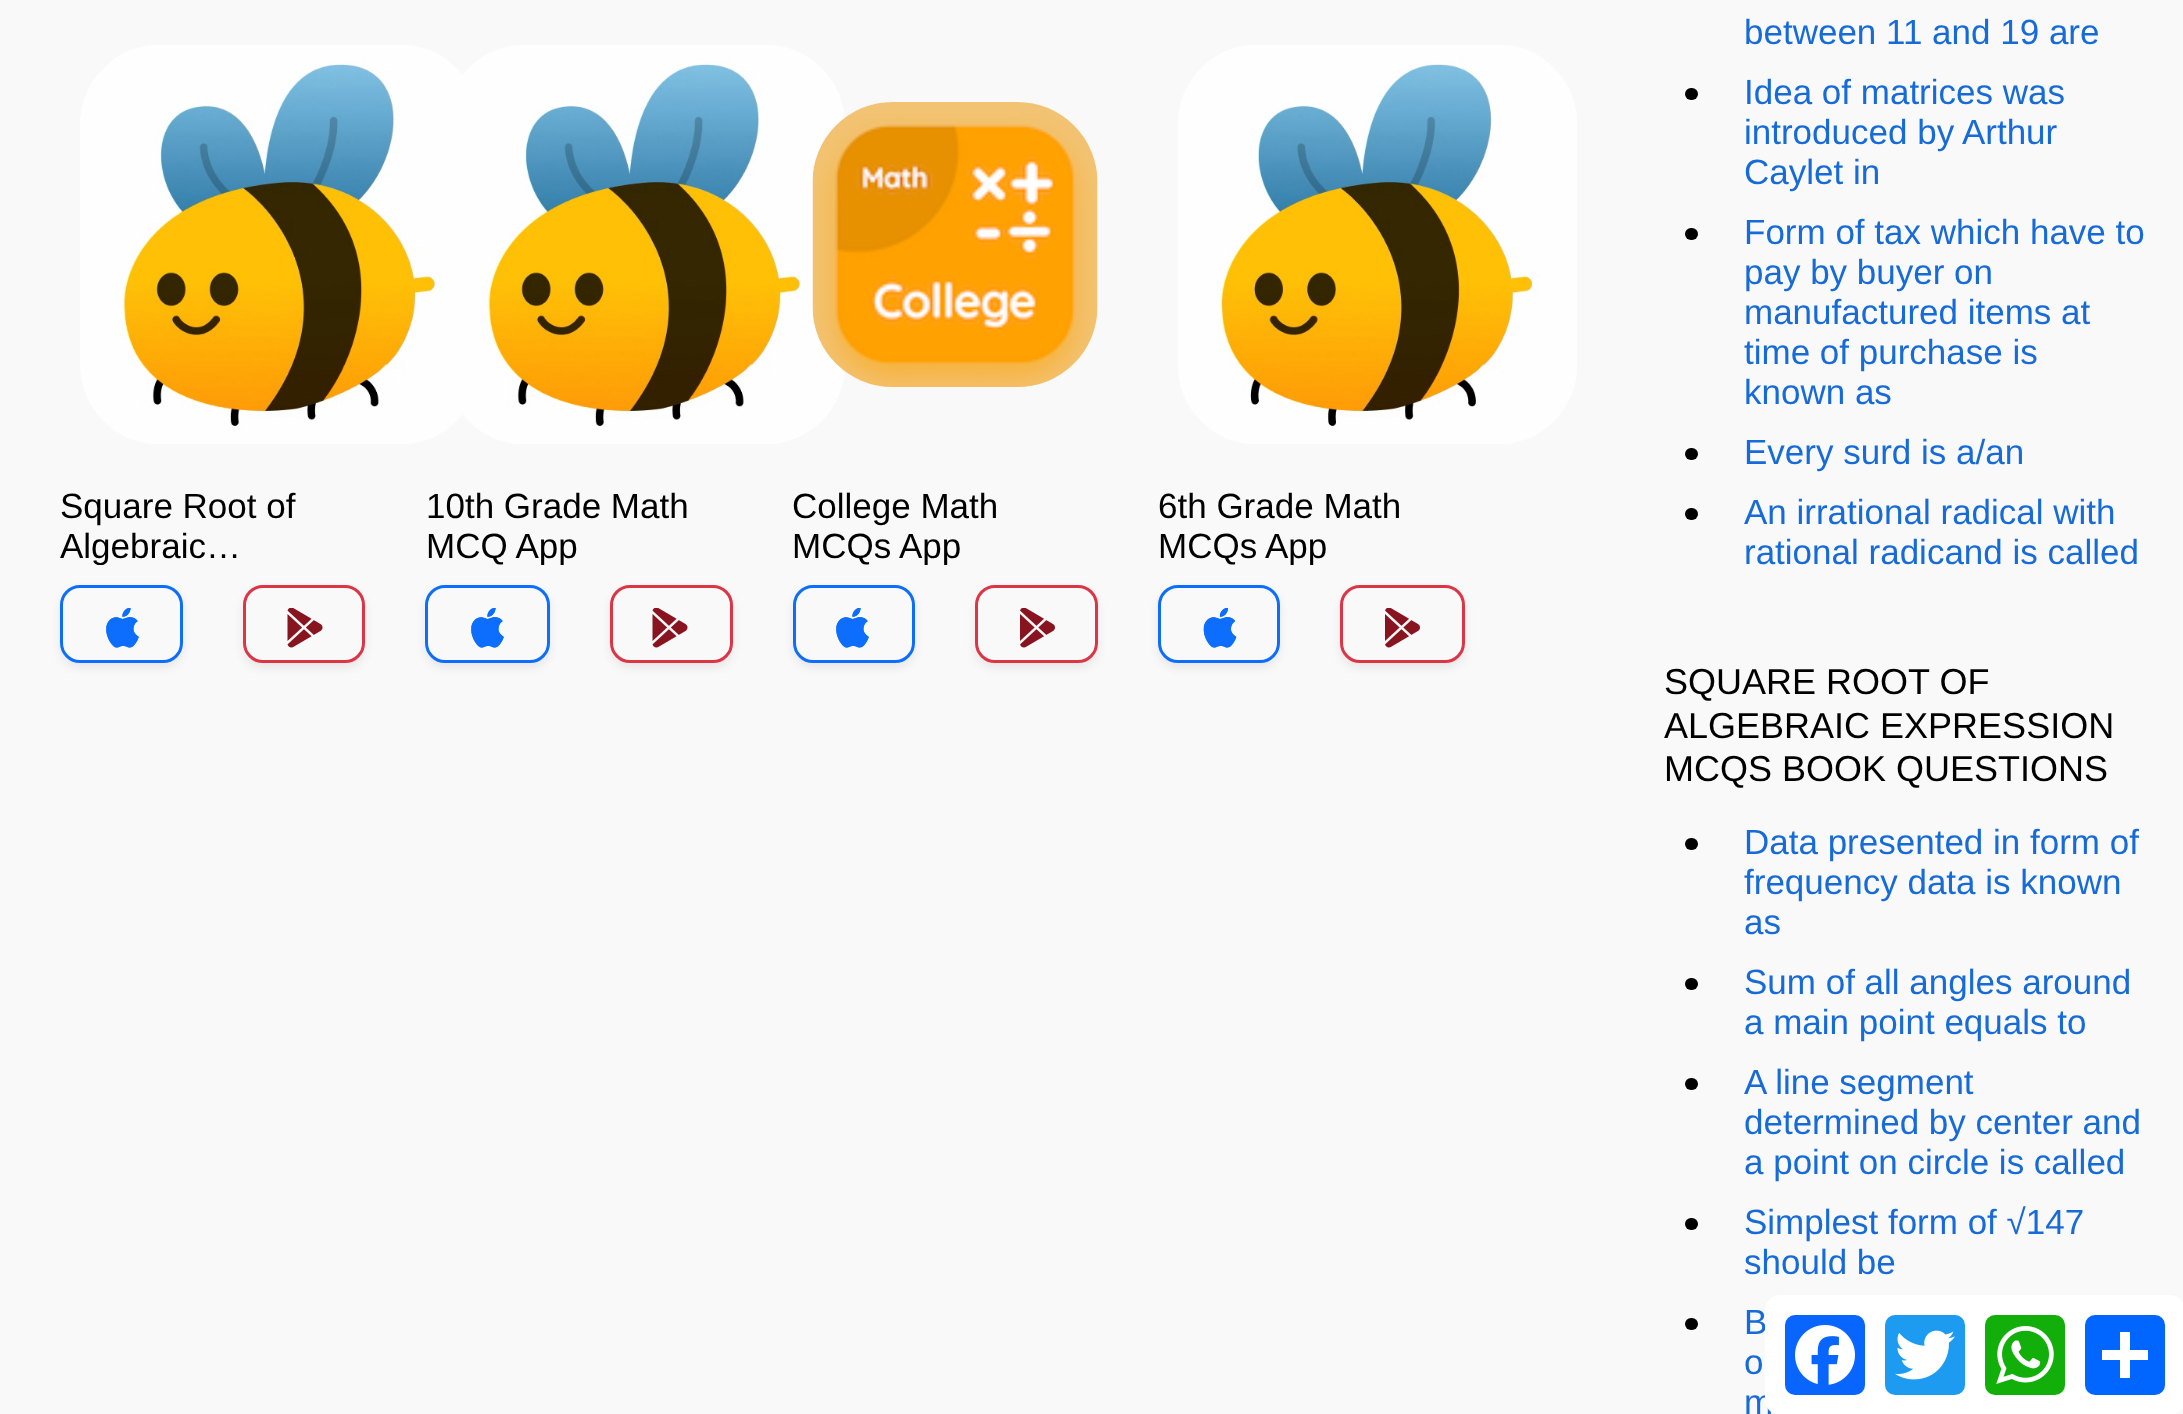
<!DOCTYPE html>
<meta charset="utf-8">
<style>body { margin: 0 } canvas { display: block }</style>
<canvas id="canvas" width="2183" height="1414"></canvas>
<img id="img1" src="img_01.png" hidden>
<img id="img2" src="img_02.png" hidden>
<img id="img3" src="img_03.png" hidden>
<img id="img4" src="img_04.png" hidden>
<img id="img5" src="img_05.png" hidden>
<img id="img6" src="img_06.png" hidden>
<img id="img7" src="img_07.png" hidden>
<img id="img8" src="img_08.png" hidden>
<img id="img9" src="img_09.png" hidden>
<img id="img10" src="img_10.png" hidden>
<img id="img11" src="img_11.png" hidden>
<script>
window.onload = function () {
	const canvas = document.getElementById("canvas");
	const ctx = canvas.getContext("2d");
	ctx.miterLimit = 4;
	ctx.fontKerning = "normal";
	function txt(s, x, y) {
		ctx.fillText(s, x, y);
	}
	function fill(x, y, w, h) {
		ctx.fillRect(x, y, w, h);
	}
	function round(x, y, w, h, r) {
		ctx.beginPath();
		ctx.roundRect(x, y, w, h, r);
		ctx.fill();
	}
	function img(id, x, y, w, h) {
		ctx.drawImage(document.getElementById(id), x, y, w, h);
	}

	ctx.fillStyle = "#F9F9F9";
	fill(0, 0, 2183, 1414);
	img("img1", 80, 45, 383, 399);
	ctx.save();
	ctx.beginPath();
	ctx.moveTo(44, 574);
	ctx.lineTo(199, 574);
	ctx.lineTo(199, 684);
	ctx.lineTo(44, 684);
	ctx.closePath();
	ctx.moveTo(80, 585);
	ctx.lineTo(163, 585);
	ctx.bezierCurveTo(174, 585, 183, 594, 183, 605);
	ctx.lineTo(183, 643);
	ctx.bezierCurveTo(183, 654, 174, 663, 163, 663);
	ctx.lineTo(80, 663);
	ctx.bezierCurveTo(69, 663, 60, 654, 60, 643);
	ctx.lineTo(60, 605);
	ctx.bezierCurveTo(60, 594, 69, 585, 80, 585);
	ctx.closePath();
	ctx.clip("evenodd");
	ctx.fillStyle = "rgba(0, 0, 0, 0.07)";
	ctx.filter = "blur(5px)";
	ctx.beginPath();
	ctx.roundRect(60, 590, 123, 78, 20);
	ctx.fill();
	ctx.filter = "none";
	ctx.restore();
	ctx.beginPath();
	ctx.roundRect(61.5, 586.5, 120, 75, 18.5);
	ctx.strokeStyle = "#0D6EFD";
	ctx.lineWidth = 3;
	ctx.stroke();
	img("img2", 106, 608, 33, 40);
	ctx.save();
	ctx.beginPath();
	ctx.moveTo(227, 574);
	ctx.lineTo(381, 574);
	ctx.lineTo(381, 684);
	ctx.lineTo(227, 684);
	ctx.closePath();
	ctx.moveTo(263, 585);
	ctx.lineTo(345, 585);
	ctx.bezierCurveTo(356, 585, 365, 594, 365, 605);
	ctx.lineTo(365, 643);
	ctx.bezierCurveTo(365, 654, 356, 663, 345, 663);
	ctx.lineTo(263, 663);
	ctx.bezierCurveTo(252, 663, 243, 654, 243, 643);
	ctx.lineTo(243, 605);
	ctx.bezierCurveTo(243, 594, 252, 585, 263, 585);
	ctx.closePath();
	ctx.clip("evenodd");
	ctx.fillStyle = "rgba(0, 0, 0, 0.07)";
	ctx.filter = "blur(5px)";
	ctx.beginPath();
	ctx.roundRect(243, 590, 122, 78, 20);
	ctx.fill();
	ctx.filter = "none";
	ctx.restore();
	ctx.beginPath();
	ctx.roundRect(244.5, 586.5, 119, 75, 18.5);
	ctx.strokeStyle = "#DC3545";
	ctx.stroke();
	img("img3", 287, 608, 36, 40);
	img("img4", 463, 45, 382, 399);
	ctx.save();
	ctx.beginPath();
	ctx.moveTo(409, 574);
	ctx.lineTo(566, 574);
	ctx.lineTo(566, 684);
	ctx.lineTo(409, 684);
	ctx.closePath();
	ctx.moveTo(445, 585);
	ctx.lineTo(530, 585);
	ctx.bezierCurveTo(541, 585, 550, 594, 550, 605);
	ctx.lineTo(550, 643);
	ctx.bezierCurveTo(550, 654, 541, 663, 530, 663);
	ctx.lineTo(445, 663);
	ctx.bezierCurveTo(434, 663, 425, 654, 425, 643);
	ctx.lineTo(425, 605);
	ctx.bezierCurveTo(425, 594, 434, 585, 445, 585);
	ctx.closePath();
	ctx.clip("evenodd");
	ctx.fillStyle = "rgba(0, 0, 0, 0.07)";
	ctx.filter = "blur(5px)";
	ctx.beginPath();
	ctx.roundRect(425, 590, 125, 78, 20);
	ctx.fill();
	ctx.filter = "none";
	ctx.restore();
	ctx.beginPath();
	ctx.roundRect(426.5, 586.5, 122, 75, 18.5);
	ctx.strokeStyle = "#0D6EFD";
	ctx.stroke();
	img("img2", 471, 608, 33, 40);
	ctx.save();
	ctx.beginPath();
	ctx.moveTo(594, 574);
	ctx.lineTo(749, 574);
	ctx.lineTo(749, 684);
	ctx.lineTo(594, 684);
	ctx.closePath();
	ctx.moveTo(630, 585);
	ctx.lineTo(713, 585);
	ctx.bezierCurveTo(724, 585, 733, 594, 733, 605);
	ctx.lineTo(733, 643);
	ctx.bezierCurveTo(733, 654, 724, 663, 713, 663);
	ctx.lineTo(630, 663);
	ctx.bezierCurveTo(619, 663, 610, 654, 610, 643);
	ctx.lineTo(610, 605);
	ctx.bezierCurveTo(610, 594, 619, 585, 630, 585);
	ctx.closePath();
	ctx.clip("evenodd");
	ctx.fillStyle = "rgba(0, 0, 0, 0.07)";
	ctx.filter = "blur(5px)";
	ctx.beginPath();
	ctx.roundRect(610, 590, 123, 78, 20);
	ctx.fill();
	ctx.filter = "none";
	ctx.restore();
	ctx.beginPath();
	ctx.roundRect(611.5, 586.5, 120, 75, 18.5);
	ctx.strokeStyle = "#DC3545";
	ctx.stroke();
	img("img3", 652, 608, 36, 40);
	img("img5", 812, 102, 286, 285);
	ctx.save();
	ctx.beginPath();
	ctx.moveTo(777, 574);
	ctx.lineTo(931, 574);
	ctx.lineTo(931, 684);
	ctx.lineTo(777, 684);
	ctx.closePath();
	ctx.moveTo(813, 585);
	ctx.lineTo(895, 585);
	ctx.bezierCurveTo(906, 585, 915, 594, 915, 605);
	ctx.lineTo(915, 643);
	ctx.bezierCurveTo(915, 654, 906, 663, 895, 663);
	ctx.lineTo(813, 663);
	ctx.bezierCurveTo(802, 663, 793, 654, 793, 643);
	ctx.lineTo(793, 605);
	ctx.bezierCurveTo(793, 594, 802, 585, 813, 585);
	ctx.closePath();
	ctx.clip("evenodd");
	ctx.fillStyle = "rgba(0, 0, 0, 0.07)";
	ctx.filter = "blur(5px)";
	ctx.beginPath();
	ctx.roundRect(793, 590, 122, 78, 20);
	ctx.fill();
	ctx.filter = "none";
	ctx.restore();
	ctx.beginPath();
	ctx.roundRect(794.5, 586.5, 119, 75, 18.5);
	ctx.strokeStyle = "#0D6EFD";
	ctx.stroke();
	img("img2", 836, 608, 33, 40);
	ctx.save();
	ctx.beginPath();
	ctx.moveTo(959, 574);
	ctx.lineTo(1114, 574);
	ctx.lineTo(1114, 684);
	ctx.lineTo(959, 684);
	ctx.closePath();
	ctx.moveTo(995, 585);
	ctx.lineTo(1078, 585);
	ctx.bezierCurveTo(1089, 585, 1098, 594, 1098, 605);
	ctx.lineTo(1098, 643);
	ctx.bezierCurveTo(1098, 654, 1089, 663, 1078, 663);
	ctx.lineTo(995, 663);
	ctx.bezierCurveTo(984, 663, 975, 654, 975, 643);
	ctx.lineTo(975, 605);
	ctx.bezierCurveTo(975, 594, 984, 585, 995, 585);
	ctx.closePath();
	ctx.clip("evenodd");
	ctx.fillStyle = "rgba(0, 0, 0, 0.07)";
	ctx.filter = "blur(5px)";
	ctx.beginPath();
	ctx.roundRect(975, 590, 123, 78, 20);
	ctx.fill();
	ctx.filter = "none";
	ctx.restore();
	ctx.beginPath();
	ctx.roundRect(976.5, 586.5, 120, 75, 18.5);
	ctx.strokeStyle = "#DC3545";
	ctx.stroke();
	img("img6", 1020, 608, 35, 40);
	img("img7", 1178, 45, 399, 399);
	ctx.save();
	ctx.beginPath();
	ctx.moveTo(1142, 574);
	ctx.lineTo(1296, 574);
	ctx.lineTo(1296, 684);
	ctx.lineTo(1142, 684);
	ctx.closePath();
	ctx.moveTo(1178, 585);
	ctx.lineTo(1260, 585);
	ctx.bezierCurveTo(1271, 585, 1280, 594, 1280, 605);
	ctx.lineTo(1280, 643);
	ctx.bezierCurveTo(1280, 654, 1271, 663, 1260, 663);
	ctx.lineTo(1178, 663);
	ctx.bezierCurveTo(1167, 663, 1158, 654, 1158, 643);
	ctx.lineTo(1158, 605);
	ctx.bezierCurveTo(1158, 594, 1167, 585, 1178, 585);
	ctx.closePath();
	ctx.clip("evenodd");
	ctx.fillStyle = "rgba(0, 0, 0, 0.07)";
	ctx.filter = "blur(5px)";
	ctx.beginPath();
	ctx.roundRect(1158, 590, 122, 78, 20);
	ctx.fill();
	ctx.filter = "none";
	ctx.restore();
	ctx.beginPath();
	ctx.roundRect(1159.5, 586.5, 119, 75, 18.5);
	ctx.strokeStyle = "#0D6EFD";
	ctx.stroke();
	img("img8", 1203, 608, 34, 40);
	ctx.save();
	ctx.beginPath();
	ctx.moveTo(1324, 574);
	ctx.lineTo(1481, 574);
	ctx.lineTo(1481, 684);
	ctx.lineTo(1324, 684);
	ctx.closePath();
	ctx.moveTo(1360, 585);
	ctx.lineTo(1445, 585);
	ctx.bezierCurveTo(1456, 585, 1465, 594, 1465, 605);
	ctx.lineTo(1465, 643);
	ctx.bezierCurveTo(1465, 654, 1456, 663, 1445, 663);
	ctx.lineTo(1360, 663);
	ctx.bezierCurveTo(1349, 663, 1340, 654, 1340, 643);
	ctx.lineTo(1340, 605);
	ctx.bezierCurveTo(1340, 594, 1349, 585, 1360, 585);
	ctx.closePath();
	ctx.clip("evenodd");
	ctx.fillStyle = "rgba(0, 0, 0, 0.07)";
	ctx.filter = "blur(5px)";
	ctx.beginPath();
	ctx.roundRect(1340, 590, 125, 78, 20);
	ctx.fill();
	ctx.filter = "none";
	ctx.restore();
	ctx.beginPath();
	ctx.roundRect(1341.5, 586.5, 122, 75, 18.5);
	ctx.strokeStyle = "#DC3545";
	ctx.stroke();
	img("img6", 1385, 608, 35, 40);
	ctx.fillStyle = "#000000";
	round(1685, 88, 13, 12, 6);
	round(1685, 228, 13, 12, 6);
	round(1685, 448, 13, 12, 6);
	round(1685, 508, 13, 12, 6);
	round(1685, 838, 13, 12, 6);
	round(1685, 978, 13, 12, 6);
	round(1685, 1078, 13, 12, 6);
	round(1685, 1218, 13, 12, 6);
	round(1685, 1318, 13, 12, 6);
	ctx.font = "35px Liberation Sans";
	txt("Square Root of", 60, 518);
	ctx.save();
	ctx.beginPath();
	ctx.rect(60, 485, 305, 80);
	ctx.clip();
	txt("Algebraic…", 60, 558);
	ctx.restore();
	txt("10th Grade Math", 426, 518);
	ctx.save();
	ctx.beginPath();
	ctx.rect(425, 485, 308, 80);
	ctx.clip();
	txt("MCQ App", 426, 558);
	ctx.restore();
	txt("College Math", 792, 518);
	ctx.save();
	ctx.beginPath();
	ctx.rect(793, 485, 305, 80);
	ctx.clip();
	txt("MCQs App", 792, 558);
	ctx.restore();
	txt("6th Grade Math", 1158, 518);
	ctx.save();
	ctx.beginPath();
	ctx.rect(1158, 485, 307, 80);
	ctx.clip();
	txt("MCQs App", 1158, 558);
	ctx.restore();
	ctx.fillStyle = "#176BD8";
	txt("between 11 and 19 are", 1744, 44);
	txt("Idea of matrices was", 1744, 104);
	txt("introduced by Arthur", 1744, 144);
	txt("Caylet in", 1744, 184);
	txt("Form of tax which have to", 1744, 244);
	txt("pay by buyer on", 1744, 284);
	txt("manufactured items at", 1744, 324);
	txt("time of purchase is", 1744, 364);
	txt("known as", 1744, 404);
	txt("Every surd is a/an", 1744, 464);
	txt("An irrational radical with", 1744, 524);
	txt("rational radicand is called", 1744, 564);
	ctx.font = "36px Liberation Sans";
	ctx.fillStyle = "#000000";
	txt("SQUARE ROOT OF", 1664, 694);
	txt("ALGEBRAIC EXPRESSION", 1664, 738);
	txt("MCQS BOOK QUESTIONS", 1664, 781);
	ctx.font = "35px Liberation Sans";
	ctx.fillStyle = "#176BD8";
	txt("Data presented in form of", 1744, 854);
	txt("frequency data is known", 1744, 894);
	txt("as", 1744, 934);
	txt("Sum of all angles around", 1744, 994);
	txt("a main point equals to", 1744, 1034);
	txt("A line segment", 1744, 1094);
	txt("determined by center and", 1744, 1134);
	txt("a point on circle is called", 1744, 1174);
	txt("Simplest form of √147", 1744, 1234);
	txt("should be", 1744, 1274);
	txt("B", 1744, 1334);
	txt("o", 1744, 1374);
	txt("m", 1744, 1414);
	ctx.fillStyle = "#FFFFFF";
	round(1765, 1295, 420, 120, 15);
	ctx.fillStyle = "#0866FF";
	round(1785, 1315, 80, 80, 10);
	img("img9", 1795, 1325, 60, 60);
	ctx.fillStyle = "#1D9BF0";
	round(1885, 1315, 80, 80, 10);
	img("img10", 1895, 1330, 60, 50);
	ctx.fillStyle = "#12AF0A";
	round(1985, 1315, 80, 80, 10);
	img("img11", 1996, 1326, 58, 58);
	ctx.fillStyle = "#0166FF";
	round(2085, 1315, 80, 80, 10);
	ctx.fillStyle = "#FFFFFF";
	fill(2120, 1332, 10, 46);
	fill(2102, 1350, 46, 10);
};
</script>
